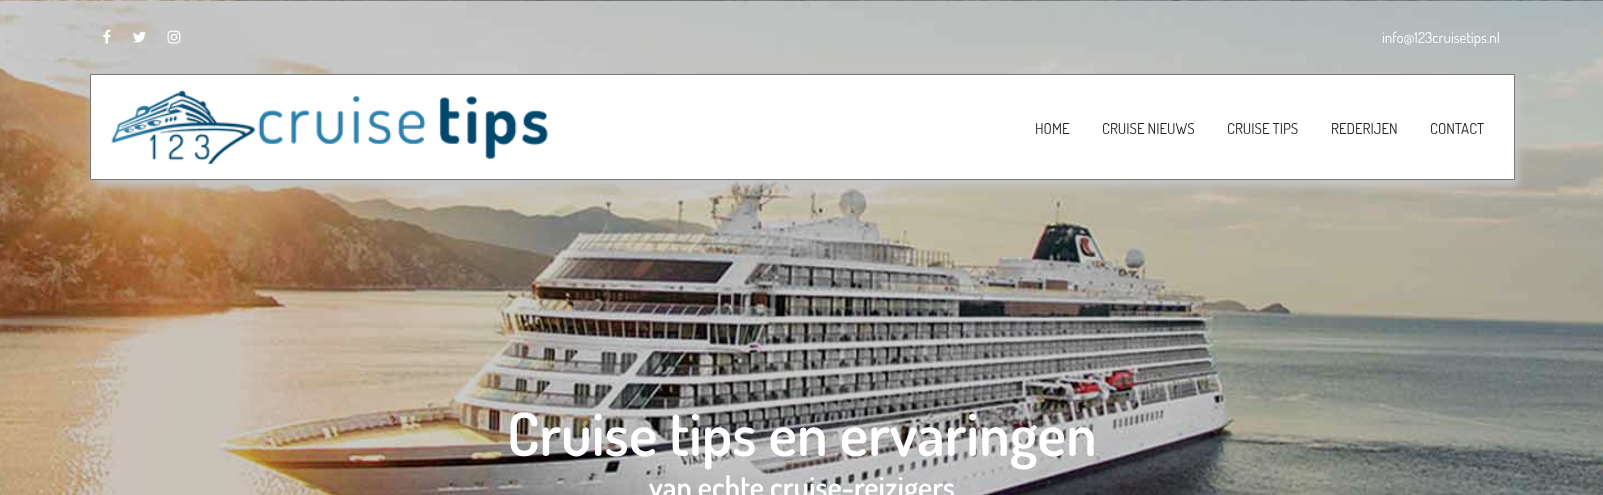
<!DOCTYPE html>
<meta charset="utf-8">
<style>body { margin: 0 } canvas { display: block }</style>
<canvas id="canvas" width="1603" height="495"></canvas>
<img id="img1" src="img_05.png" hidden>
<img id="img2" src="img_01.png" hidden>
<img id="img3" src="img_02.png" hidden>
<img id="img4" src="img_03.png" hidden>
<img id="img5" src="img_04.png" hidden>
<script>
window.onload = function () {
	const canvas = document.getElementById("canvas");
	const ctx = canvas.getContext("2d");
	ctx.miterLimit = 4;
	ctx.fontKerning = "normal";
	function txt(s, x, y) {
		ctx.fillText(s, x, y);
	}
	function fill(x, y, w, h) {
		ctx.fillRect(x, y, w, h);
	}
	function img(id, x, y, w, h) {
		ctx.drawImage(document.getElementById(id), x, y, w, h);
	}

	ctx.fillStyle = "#FFFFFF";
	fill(0, 0, 1603, 495);
	img("img1", 0, 0, 1603, 495);
	img("img2", 103, 29, 8, 15);
	img("img3", 133, 31, 13, 12);
	img("img4", 167, 30, 14, 14);
	ctx.fillStyle = "#C4C4C4";
	ctx.filter = "blur(5px)";
	ctx.beginPath();
	ctx.rect(93, 80, 1425, 106);
	ctx.fill();
	ctx.filter = "none";
	ctx.fillStyle = "#FFFFFF";
	ctx.beginPath();
	ctx.rect(90.5, 74.5, 1424, 105);
	ctx.fill();
	ctx.strokeStyle = "#777777";
	ctx.stroke();
	img("img5", 111, 90, 437, 74);
	ctx.font = "15px Dosis";
	txt("info@123cruisetips.nl", 1382, 43);
	ctx.fillStyle = "#222222";
	txt("HOME", 1035, 134);
	txt("CRUISE NIEUWS", 1102, 134);
	txt("CRUISE TIPS", 1227, 134);
	txt("REDERIJEN", 1331, 134);
	txt("CONTACT", 1430, 134);
	ctx.font = "600 60px Dosis";
	ctx.fillStyle = "#FFFFFF";
	txt("Cruise tips en ervaringen", 507, 456);
	ctx.font = "600 30px Dosis";
	txt("van echte cruise-reizigers", 649, 498);
};
</script>
